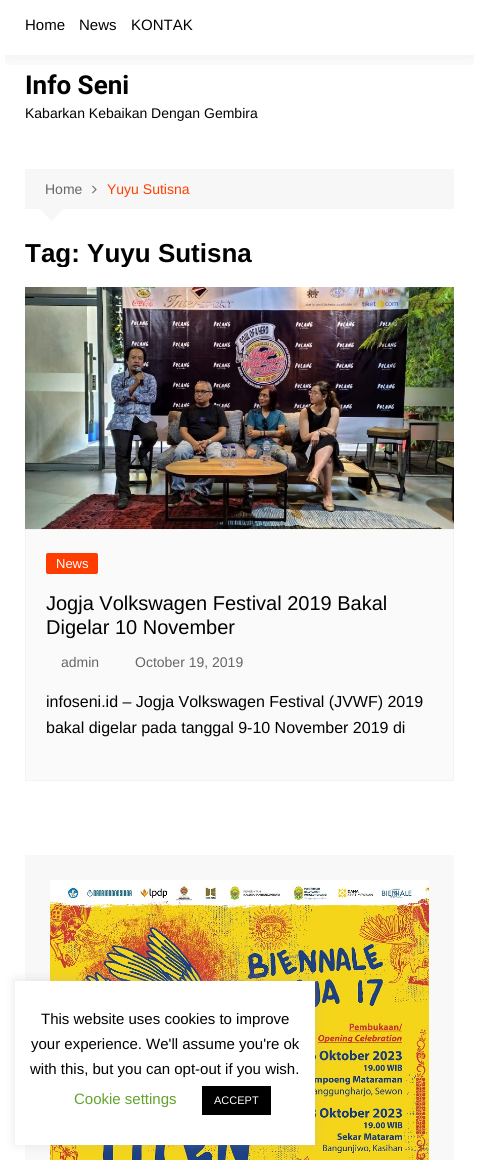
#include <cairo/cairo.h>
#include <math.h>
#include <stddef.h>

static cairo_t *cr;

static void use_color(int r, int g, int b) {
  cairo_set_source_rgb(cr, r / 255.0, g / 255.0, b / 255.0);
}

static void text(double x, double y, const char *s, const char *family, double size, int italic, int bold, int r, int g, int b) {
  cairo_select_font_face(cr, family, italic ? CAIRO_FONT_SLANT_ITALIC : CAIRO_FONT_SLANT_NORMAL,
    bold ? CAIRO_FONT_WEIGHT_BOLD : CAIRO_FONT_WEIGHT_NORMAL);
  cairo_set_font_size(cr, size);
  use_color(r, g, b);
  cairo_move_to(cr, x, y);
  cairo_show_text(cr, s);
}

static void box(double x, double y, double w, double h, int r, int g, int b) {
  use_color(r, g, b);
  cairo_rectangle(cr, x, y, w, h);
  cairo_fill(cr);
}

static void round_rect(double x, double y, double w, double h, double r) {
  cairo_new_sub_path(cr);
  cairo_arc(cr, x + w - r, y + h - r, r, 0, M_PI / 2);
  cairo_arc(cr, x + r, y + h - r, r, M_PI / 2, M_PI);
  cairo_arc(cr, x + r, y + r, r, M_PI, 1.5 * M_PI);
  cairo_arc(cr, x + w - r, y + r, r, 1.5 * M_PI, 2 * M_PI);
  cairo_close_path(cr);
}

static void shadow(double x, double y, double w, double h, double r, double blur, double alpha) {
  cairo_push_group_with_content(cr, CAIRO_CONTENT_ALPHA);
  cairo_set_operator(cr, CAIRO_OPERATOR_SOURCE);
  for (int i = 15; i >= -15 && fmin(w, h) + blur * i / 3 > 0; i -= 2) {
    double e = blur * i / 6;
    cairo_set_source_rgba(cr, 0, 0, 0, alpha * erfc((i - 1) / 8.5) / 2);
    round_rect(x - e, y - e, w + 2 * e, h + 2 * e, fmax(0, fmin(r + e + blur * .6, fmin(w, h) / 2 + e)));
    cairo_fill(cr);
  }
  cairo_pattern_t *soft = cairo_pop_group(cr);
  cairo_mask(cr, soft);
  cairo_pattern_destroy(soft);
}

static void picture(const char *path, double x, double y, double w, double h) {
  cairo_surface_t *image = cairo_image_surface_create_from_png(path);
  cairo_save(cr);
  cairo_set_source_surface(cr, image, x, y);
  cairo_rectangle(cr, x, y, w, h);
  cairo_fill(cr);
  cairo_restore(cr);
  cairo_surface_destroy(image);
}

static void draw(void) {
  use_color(255, 255, 255);
  cairo_paint(cr);
  cairo_save(cr);
  cairo_rectangle(cr, 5, 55, 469, 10);
  cairo_clip(cr);
  use_color(0, 0, 0);
  shadow(5, 7, 469, 45, 0, 15, 0.1);
  cairo_restore(cr);
  box(25, 169, 429, 40, 247, 247, 247);
  picture("img_01.png", 92, 185, 5, 9);
  cairo_new_path(cr);
  cairo_move_to(cr, 39.5, 208.5);
  cairo_line_to(cr, 63.5, 208.5);
  cairo_line_to(cr, 51.5, 221.5);
  cairo_close_path(cr);
  cairo_fill(cr);
  picture("img_02.png", 25, 287, 429, 242);
  use_color(250, 250, 250);
  cairo_rectangle(cr, 25.5, 529.5, 428, 251);
  cairo_fill_preserve(cr);
  use_color(243, 243, 243);
  cairo_set_line_width(cr, 1);
  cairo_stroke(cr);
  use_color(255, 61, 0);
  round_rect(46, 553, 52, 21, 2);
  cairo_fill(cr);
  box(25, 855, 429, 305, 248, 248, 248);
  picture("img_03.png", 50, 880, 379, 280);
  use_color(172, 171, 171);
  shadow(15, 980, 300, 164, 0, 5, 0.3);
  box(15, 981, 300, 164, 255, 255, 255);
  box(202, 1086, 69, 29, 0, 0, 0);
  text(25, 30, "Home", "Liberation Sans", 15, 0, 0, 1, 1, 1);
  text(79, 30, "News", "Liberation Sans", 15, 0, 0, 1, 1, 1);
  text(131, 30, "KONTAK", "Liberation Sans", 15, 0, 0, 1, 1, 1);
  text(25, 94, "Info Seni", "Roboto", 26, 0, 1, 1, 1, 1);
  text(25, 118, "Kabarkan Kebaikan Dengan Gembira", "Liberation Sans", 14, 0, 0, 1, 1, 1);
  text(45, 194, "Home", "Liberation Sans", 14, 0, 0, 102, 102, 102);
  text(107, 194, "Yuyu Sutisna", "Liberation Sans", 14, 0, 0, 255, 61, 0);
  cairo_save(cr);
  cairo_rectangle(cr, 25, 239, 429, 28);
  cairo_clip(cr);
  text(25, 262, "Tag: Yuyu Sutisna", "Liberation Sans", 26, 0, 1, 1, 1, 1);
  cairo_restore(cr);
  text(56, 568, "News", "Liberation Sans", 13, 0, 0, 255, 255, 255);
  text(46, 610, "Jogja Volkswagen Festival 2019 Bakal", "Liberation Sans", 20, 0, 0, 1, 1, 1);
  text(46, 634, "Digelar 10 November", "Liberation Sans", 20, 0, 0, 1, 1, 1);
  text(61, 667, "admin", "Liberation Sans", 14, 0, 0, 102, 102, 102);
  text(135, 667, "October 19, 2019", "Liberation Sans", 14, 0, 0, 102, 102, 102);
  text(46, 707, "infoseni.id – Jogja Volkswagen Festival (JVWF) 2019", "Liberation Sans", 16, 0, 0, 1, 1, 1);
  text(46, 733, "bakal digelar pada tanggal 9-10 November 2019 di", "Liberation Sans", 16, 0, 0, 1, 1, 1);
  text(41, 1024, "This website uses cookies to improve", "Liberation Sans", 15, 0, 0, 1, 1, 1);
  text(31, 1049, "your experience. We'll assume you're ok", "Liberation Sans", 15, 0, 0, 1, 1, 1);
  text(30, 1074, "with this, but you can opt-out if you wish.", "Liberation Sans", 15, 0, 0, 1, 1, 1);
  text(74, 1104, "Cookie settings", "Liberation Sans", 15, 0, 0, 98, 163, 41);
  text(214, 1104, "ACCEPT", "Liberation Sans", 11, 0, 0, 255, 255, 255);
}

int main(void) {
  cairo_surface_t *surface = cairo_image_surface_create(CAIRO_FORMAT_RGB24, 479, 1160);
  cr = cairo_create(surface);
  cairo_font_options_t *options = cairo_font_options_create();
  cairo_font_options_set_hint_metrics(options, CAIRO_HINT_METRICS_OFF);
  cairo_font_options_set_hint_style(options, CAIRO_HINT_STYLE_NONE);
  cairo_set_font_options(cr, options);
  cairo_set_miter_limit(cr, 4);
  draw();
  cairo_surface_write_to_png(surface, "out.png");
  cairo_font_options_destroy(options);
  cairo_destroy(cr);
  cairo_surface_destroy(surface);
  return 0;
}
